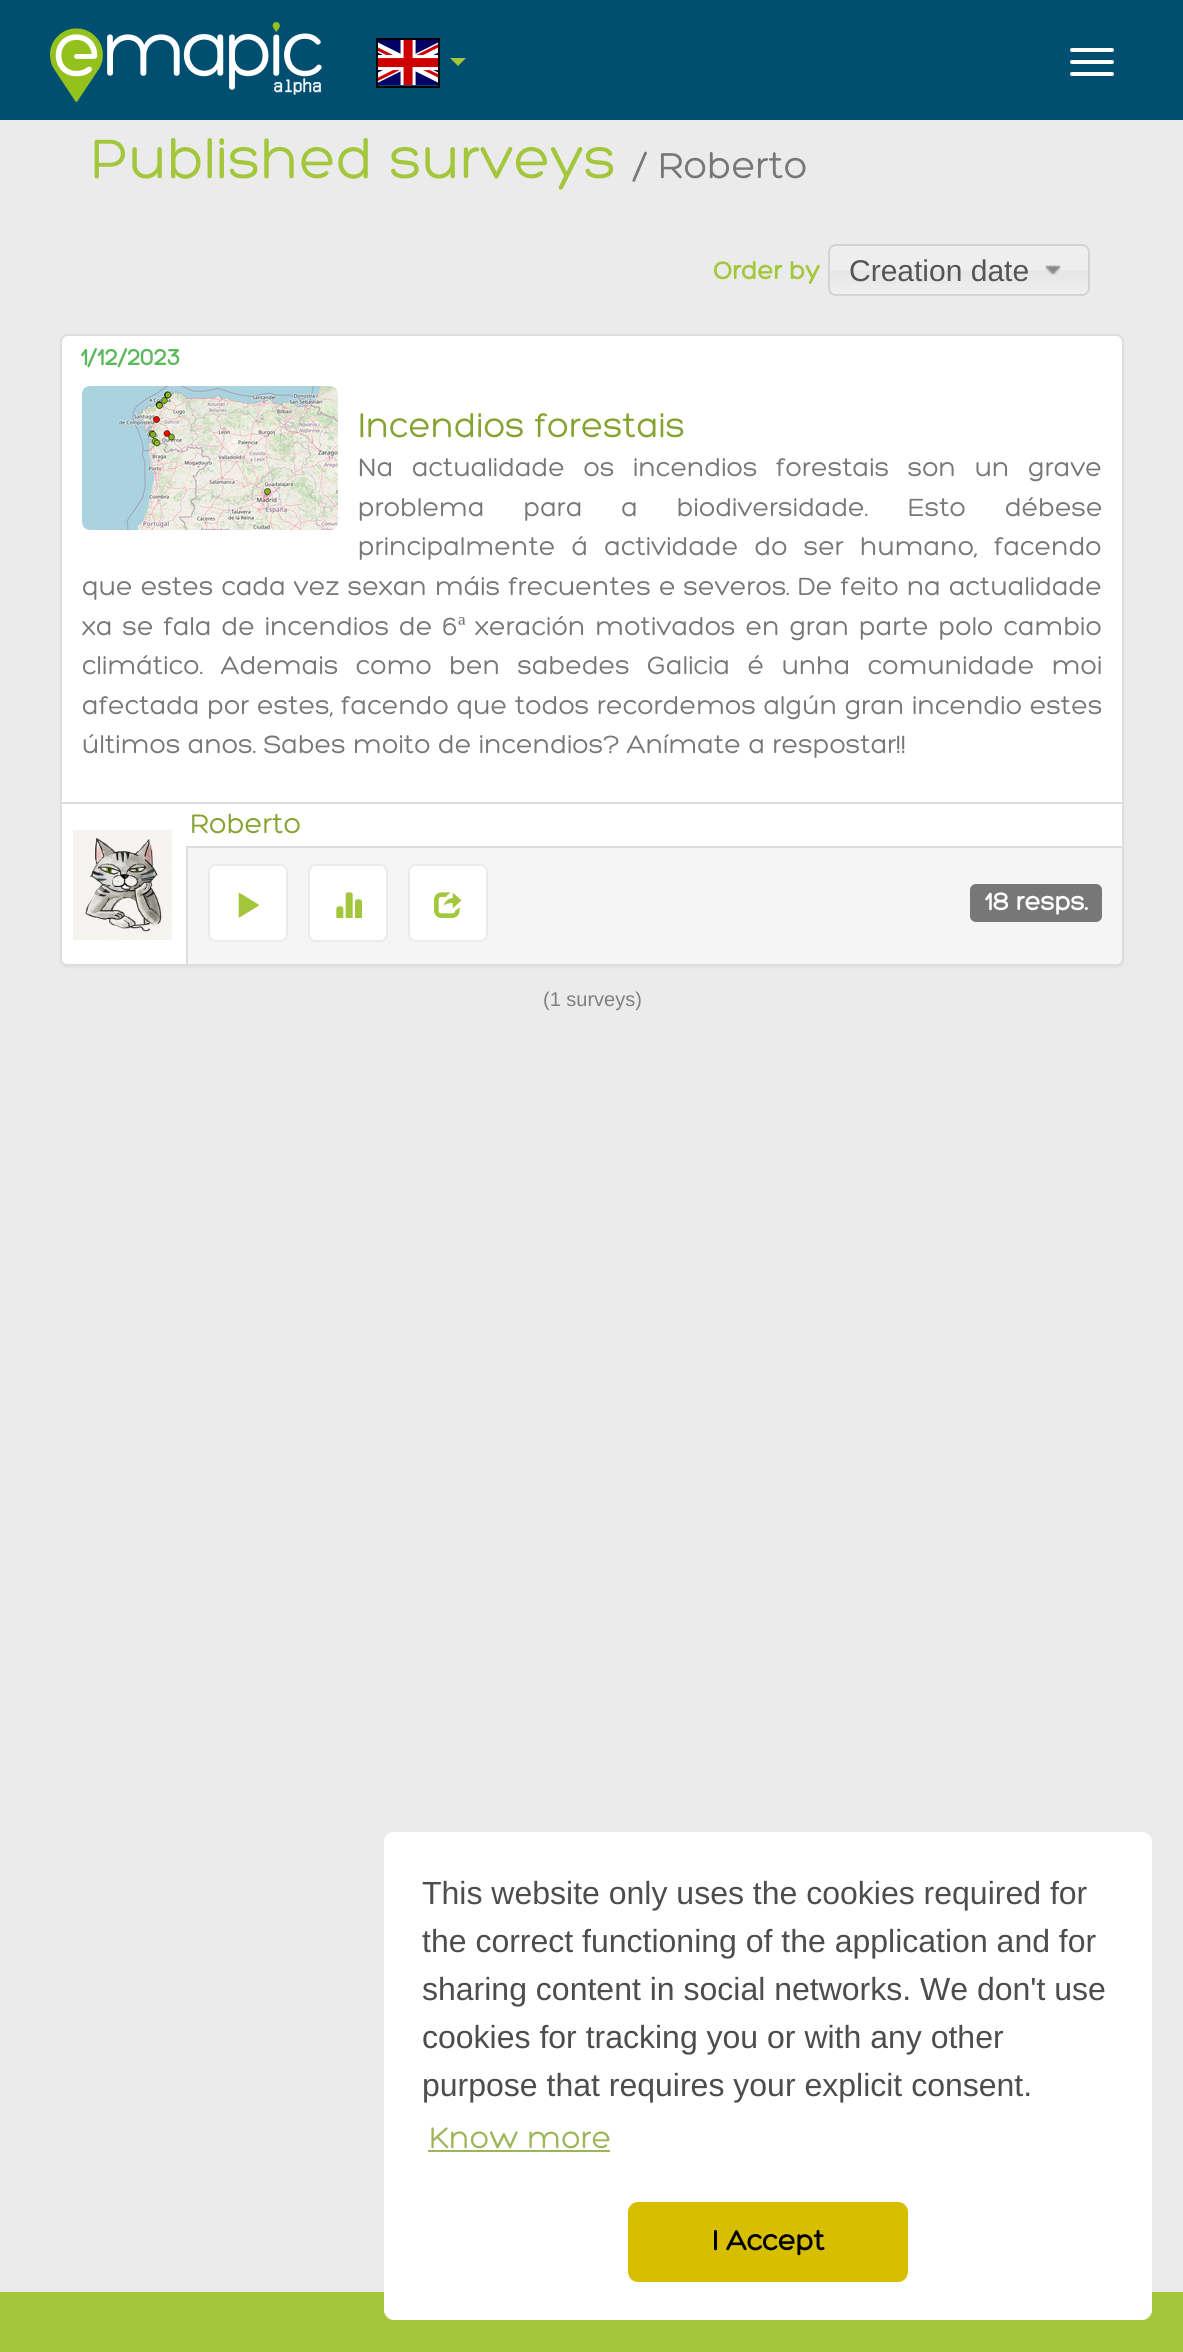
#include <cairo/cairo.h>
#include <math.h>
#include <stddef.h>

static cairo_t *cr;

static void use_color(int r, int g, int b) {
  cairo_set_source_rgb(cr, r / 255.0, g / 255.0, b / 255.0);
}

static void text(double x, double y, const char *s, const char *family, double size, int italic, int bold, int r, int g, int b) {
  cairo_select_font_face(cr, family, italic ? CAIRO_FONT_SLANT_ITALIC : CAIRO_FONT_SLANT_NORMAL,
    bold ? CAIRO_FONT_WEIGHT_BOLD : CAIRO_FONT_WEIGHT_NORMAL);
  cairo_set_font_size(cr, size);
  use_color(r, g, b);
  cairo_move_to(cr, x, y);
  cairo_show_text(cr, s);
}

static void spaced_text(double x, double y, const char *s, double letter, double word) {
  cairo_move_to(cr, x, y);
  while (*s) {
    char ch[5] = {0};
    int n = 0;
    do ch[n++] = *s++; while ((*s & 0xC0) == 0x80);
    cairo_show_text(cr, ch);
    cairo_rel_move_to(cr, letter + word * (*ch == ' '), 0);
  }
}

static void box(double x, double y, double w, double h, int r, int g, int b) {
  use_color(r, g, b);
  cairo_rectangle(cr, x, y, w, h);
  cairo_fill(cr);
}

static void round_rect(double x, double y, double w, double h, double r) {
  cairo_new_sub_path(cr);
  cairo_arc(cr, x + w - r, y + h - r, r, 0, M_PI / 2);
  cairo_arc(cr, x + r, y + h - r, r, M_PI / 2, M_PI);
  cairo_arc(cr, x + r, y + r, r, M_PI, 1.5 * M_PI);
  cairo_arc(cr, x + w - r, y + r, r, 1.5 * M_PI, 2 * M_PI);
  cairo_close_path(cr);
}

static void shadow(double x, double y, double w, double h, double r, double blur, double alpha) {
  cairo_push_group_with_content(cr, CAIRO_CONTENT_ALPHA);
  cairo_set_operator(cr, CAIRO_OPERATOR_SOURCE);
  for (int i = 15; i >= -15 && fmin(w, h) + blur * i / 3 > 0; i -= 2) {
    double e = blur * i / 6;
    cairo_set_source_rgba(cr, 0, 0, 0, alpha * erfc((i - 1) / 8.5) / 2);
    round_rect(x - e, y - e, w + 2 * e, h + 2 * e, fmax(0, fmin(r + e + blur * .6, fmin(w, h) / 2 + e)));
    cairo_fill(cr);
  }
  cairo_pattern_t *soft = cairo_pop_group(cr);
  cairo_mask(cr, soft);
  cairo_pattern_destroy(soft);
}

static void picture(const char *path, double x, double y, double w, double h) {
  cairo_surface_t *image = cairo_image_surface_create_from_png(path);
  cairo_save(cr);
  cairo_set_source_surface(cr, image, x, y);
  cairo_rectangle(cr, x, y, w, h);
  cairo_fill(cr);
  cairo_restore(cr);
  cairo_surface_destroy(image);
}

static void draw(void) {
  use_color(235, 235, 235);
  cairo_paint(cr);
  box(0, 0, 1183, 120, 0, 79, 113);
  picture("img_01.png", 50, 22, 272, 80);
  cairo_rectangle(cr, 377, 39, 62, 48);
  use_color(0, 0, 0);
  cairo_stroke(cr);
  picture("img_02.png", 378, 40, 60, 46);
  use_color(162, 199, 58);
  cairo_new_path(cr);
  cairo_move_to(cr, 450, 58);
  cairo_line_to(cr, 466, 58);
  cairo_line_to(cr, 458, 66);
  cairo_close_path(cr);
  cairo_fill(cr);
  use_color(255, 255, 255);
  round_rect(1070, 48, 44, 4, 2);
  cairo_fill(cr);
  round_rect(1070, 60, 44, 4, 2);
  cairo_fill(cr);
  round_rect(1070, 72, 44, 4, 2);
  cairo_fill(cr);
  picture("img_03.png", 828, 244, 262, 52);
  round_rect(829, 245, 260, 50, 7);
  use_color(211, 211, 211);
  cairo_stroke(cr);
  picture("img_04.png", 1045, 265, 16, 10);
  use_color(0, 0, 0);
  shadow(60, 336, 1064, 632, 8, 1, 0.05);
  use_color(255, 255, 255);
  round_rect(61, 335, 1062, 630, 7);
  cairo_fill_preserve(cr);
  use_color(221, 221, 221);
  cairo_stroke(cr);
  picture("img_05.png", 82, 386, 256, 144);
  box(62, 802, 1060, 2, 221, 221, 221);
  use_color(245, 245, 245);
  cairo_new_path(cr);
  cairo_move_to(cr, 62, 846);
  cairo_line_to(cr, 1122, 846);
  cairo_line_to(cr, 1122, 958);
  cairo_curve_to(cr, 1122, 961.5, 1119.5, 964, 1116, 964);
  cairo_line_to(cr, 68, 964);
  cairo_curve_to(cr, 64.5, 964, 62, 961.5, 62, 958);
  cairo_close_path(cr);
  cairo_fill(cr);
  use_color(255, 255, 255);
  cairo_new_path(cr);
  cairo_move_to(cr, 62, 804);
  cairo_line_to(cr, 188, 804);
  cairo_line_to(cr, 188, 964);
  cairo_line_to(cr, 68, 964);
  cairo_curve_to(cr, 64.5, 964, 62, 961.5, 62, 958);
  cairo_close_path(cr);
  cairo_fill(cr);
  box(186, 846, 2, 118, 221, 221, 221);
  picture("img_06.png", 73, 830, 99, 110);
  box(188, 846, 934, 2, 221, 221, 221);
  use_color(255, 255, 255);
  round_rect(209, 865, 78, 76, 7);
  cairo_fill_preserve(cr);
  use_color(235, 235, 235);
  cairo_stroke(cr);
  picture("img_07.png", 238, 892, 21, 26);
  use_color(255, 255, 255);
  round_rect(309, 865, 78, 76, 7);
  cairo_fill_preserve(cr);
  use_color(235, 235, 235);
  cairo_stroke(cr);
  picture("img_08.png", 336, 892, 26, 26);
  use_color(255, 255, 255);
  round_rect(409, 865, 78, 76, 7);
  cairo_fill_preserve(cr);
  use_color(235, 235, 235);
  cairo_stroke(cr);
  picture("img_09.png", 434, 892, 28, 26);
  use_color(119, 119, 119);
  round_rect(970, 884, 132, 38, 6);
  cairo_fill(cr);
  box(0, 2292, 1183, 60, 162, 199, 58);
  use_color(255, 255, 255);
  round_rect(384, 1832, 768, 488, 10);
  cairo_fill(cr);
  box(428, 2150, 182, 2, 157, 181, 89);
  use_color(215, 191, 0);
  round_rect(628, 2202, 280, 80, 10);
  cairo_fill(cr);
  text(90, 178, "Published surveys", "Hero", 60, 0, 0, 162, 199, 58);
  text(633, 178, "/ Roberto", "Hero", 39, 0, 0, 119, 119, 119);
  text(713, 279, "Order by", "Hero", 26, 0, 1, 162, 199, 58);
  text(849, 281, "Creation date", "Liberation Sans", 30, 0, 0, 85, 85, 85);
  text(80, 365, "1/12/2023", "Hero", 24, 0, 1, 92, 184, 92);
  text(358, 437, "Incendios forestais", "Hero", 36, 0, 0, 133, 163, 48);
  cairo_set_font_size(cr, 27);
  use_color(119, 119, 119);
  spaced_text(358, 476, "Na actualidade os incendios forestais son un grave", 0, 11.25);
  spaced_text(358, 516, "problema para a biodiversidade. Esto débese", 0, 31.5);
  spaced_text(358, 555, "principalmente á actividade do ser humano, facendo", 0, 8.75);
  spaced_text(82, 595, "que estes cada vez sexan máis frecuentes e severos. De feito na actualidade", 0, 0.6);
  spaced_text(82, 635, "xa se fala de incendios de 6", 0, 2.5);
  text(458, 635, "ª", "Liberation Serif", 27, 0, 0, 119, 119, 119);
  cairo_select_font_face(cr, "Hero", CAIRO_FONT_SLANT_NORMAL, CAIRO_FONT_WEIGHT_NORMAL);
  spaced_text(475, 635, "xeración motivados en gran parte polo cambio", 0, 2.5);
  spaced_text(82, 674, "climático. Ademais como ben sabedes Galicia é unha comunidade moi", 0, 10);
  spaced_text(82, 714, "afectada por estes, facendo que todos recordemos algún gran incendio estes", 0, 0.25);
  text(82, 753, "últimos anos. Sabes moito de incendios? Anímate a respostar!!", "Hero", 27, 0, 0, 119, 119, 119);
  text(190, 833, "Roberto", "Hero", 29, 0, 0, 133, 163, 48);
  text(984, 910, "18 resps.", "Hero", 26, 0, 1, 255, 255, 255);
  text(543, 1006, "(1 surveys)", "Liberation Sans", 20, 0, 0, 128, 128, 128);
  text(422, 1904, "This website only uses the cookies required for", "Liberation Sans", 32, 0, 0, 77, 77, 77);
  text(422, 1952, "the correct functioning of the application and for", "Liberation Sans", 32, 0, 0, 77, 77, 77);
  text(422, 2000, "sharing content in social networks. We don't use", "Liberation Sans", 32, 0, 0, 77, 77, 77);
  text(422, 2048, "cookies for tracking you or with any other", "Liberation Sans", 32, 0, 0, 77, 77, 77);
  text(422, 2096, "purpose that requires your explicit consent.", "Liberation Sans", 32, 0, 0, 77, 77, 77);
  text(429, 2148, "Know more", "Hero", 32, 0, 0, 157, 181, 89);
  text(712, 2250, "I Accept", "Hero", 29, 0, 1, 0, 0, 0);
}

int main(void) {
  cairo_surface_t *surface = cairo_image_surface_create(CAIRO_FORMAT_RGB24, 1183, 2352);
  cr = cairo_create(surface);
  cairo_font_options_t *options = cairo_font_options_create();
  cairo_font_options_set_hint_metrics(options, CAIRO_HINT_METRICS_OFF);
  cairo_font_options_set_hint_style(options, CAIRO_HINT_STYLE_NONE);
  cairo_set_font_options(cr, options);
  cairo_set_miter_limit(cr, 4);
  draw();
  cairo_surface_write_to_png(surface, "out.png");
  cairo_font_options_destroy(options);
  cairo_destroy(cr);
  cairo_surface_destroy(surface);
  return 0;
}
